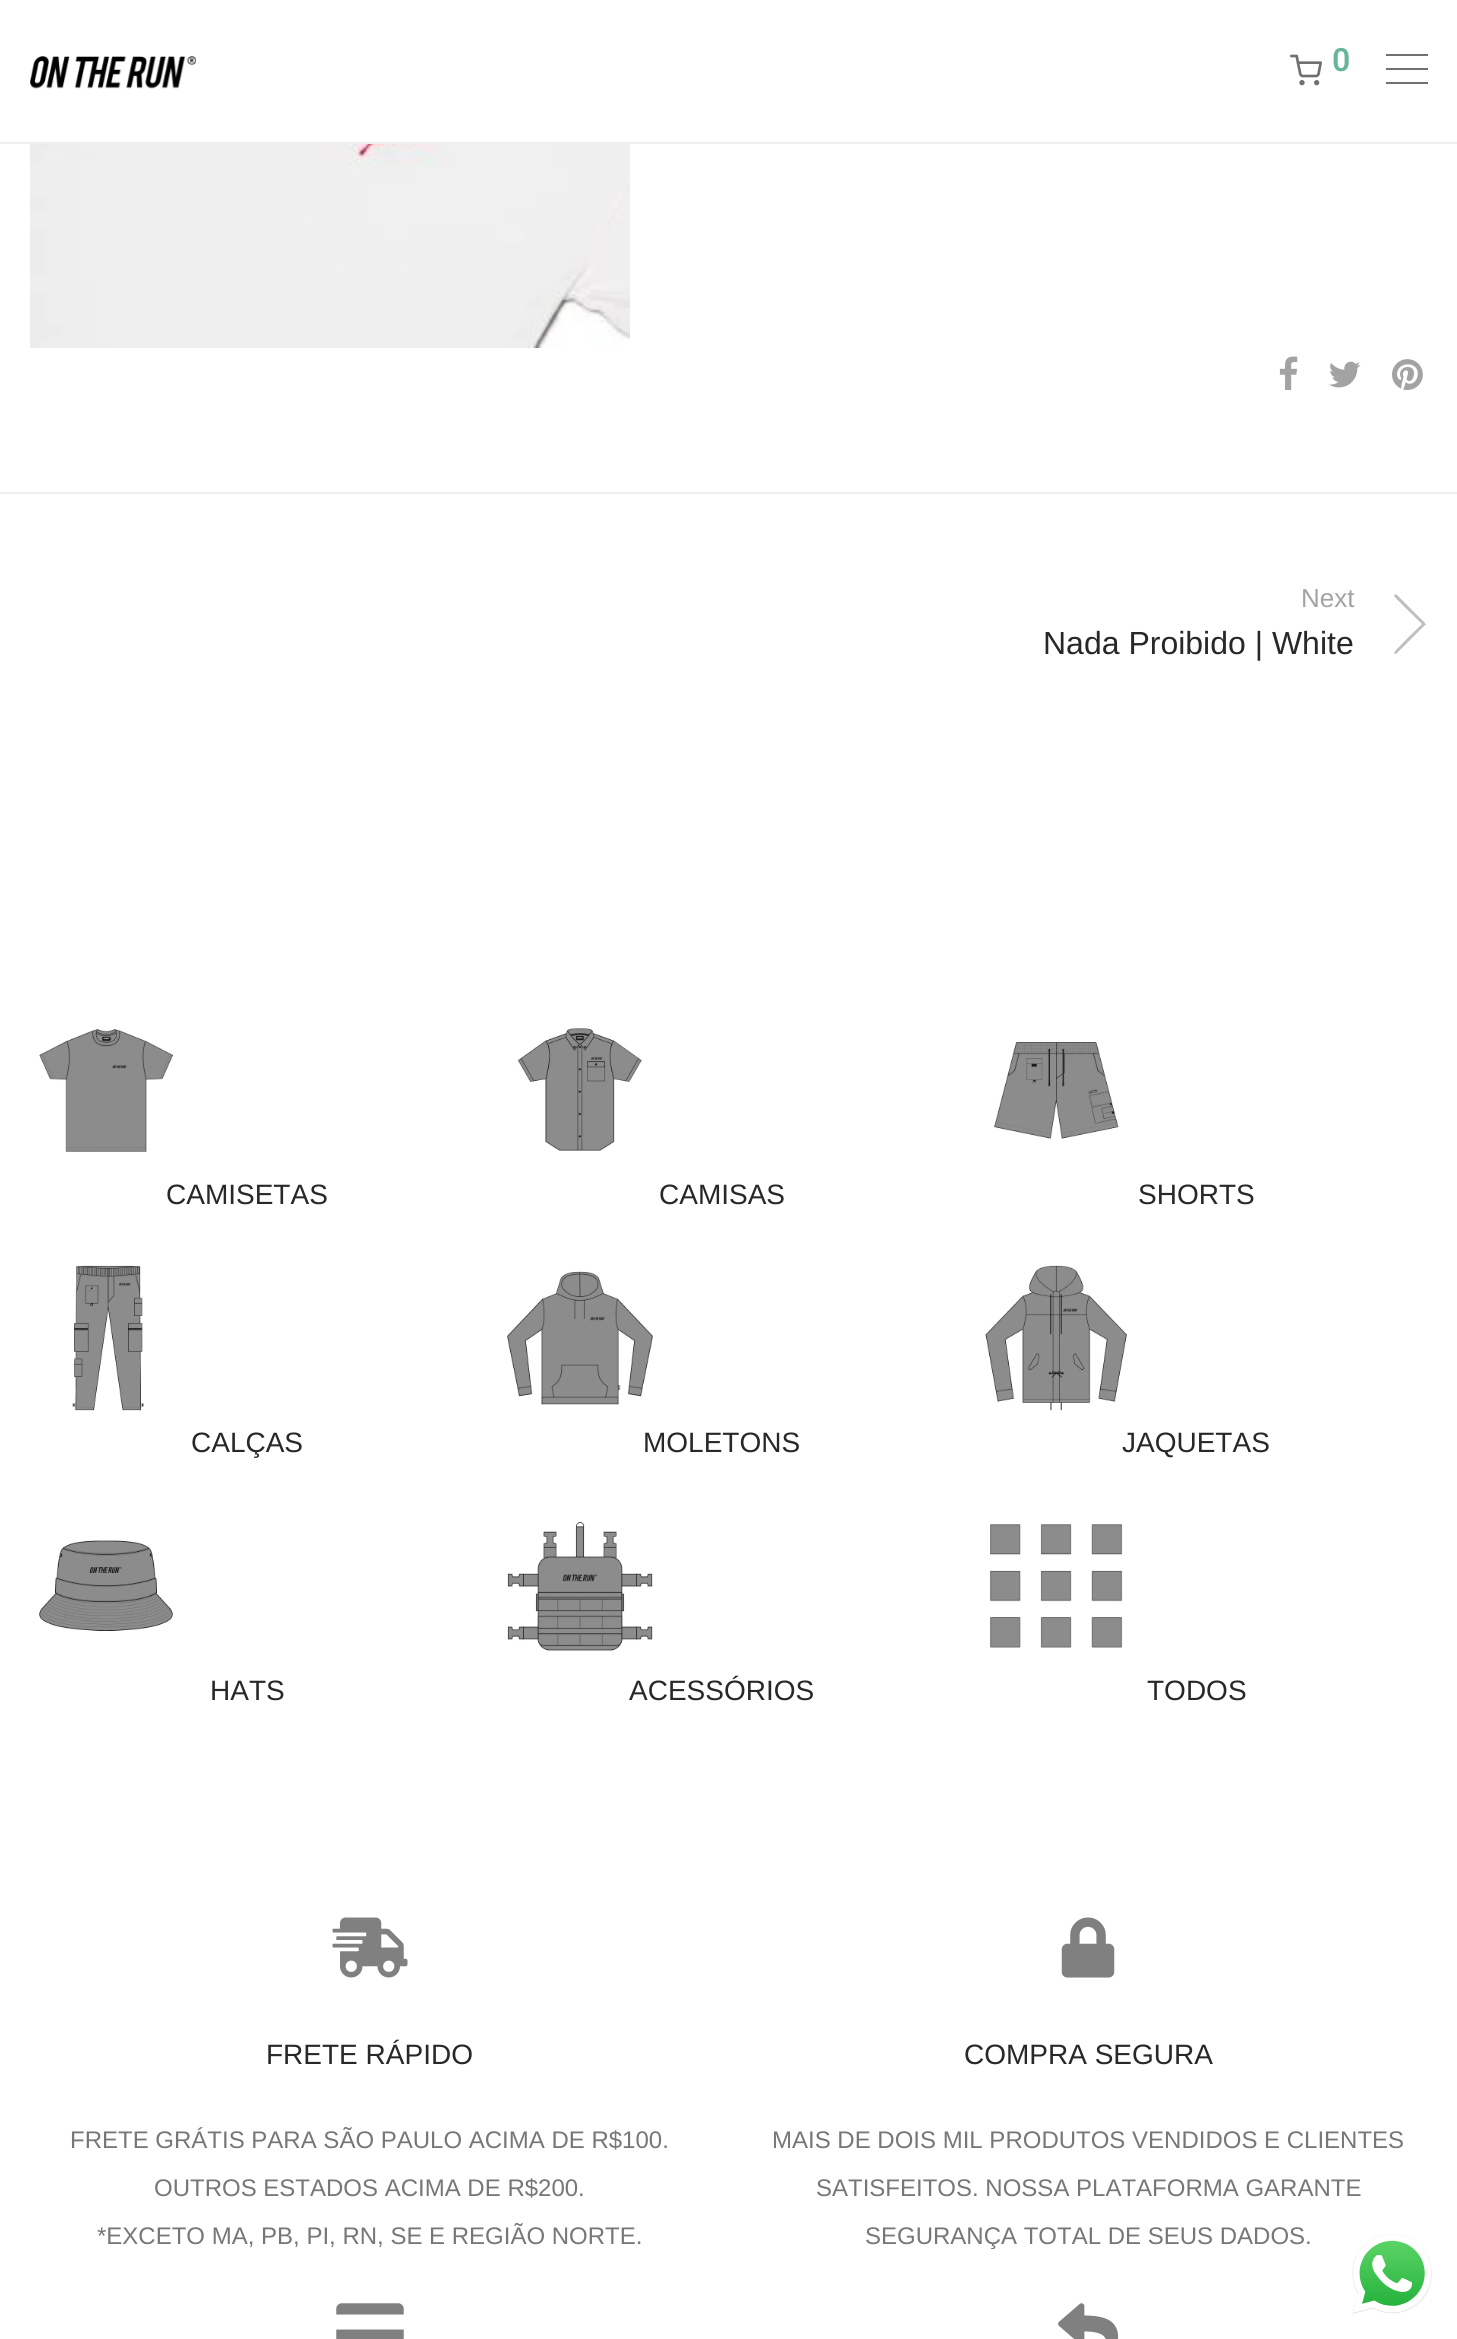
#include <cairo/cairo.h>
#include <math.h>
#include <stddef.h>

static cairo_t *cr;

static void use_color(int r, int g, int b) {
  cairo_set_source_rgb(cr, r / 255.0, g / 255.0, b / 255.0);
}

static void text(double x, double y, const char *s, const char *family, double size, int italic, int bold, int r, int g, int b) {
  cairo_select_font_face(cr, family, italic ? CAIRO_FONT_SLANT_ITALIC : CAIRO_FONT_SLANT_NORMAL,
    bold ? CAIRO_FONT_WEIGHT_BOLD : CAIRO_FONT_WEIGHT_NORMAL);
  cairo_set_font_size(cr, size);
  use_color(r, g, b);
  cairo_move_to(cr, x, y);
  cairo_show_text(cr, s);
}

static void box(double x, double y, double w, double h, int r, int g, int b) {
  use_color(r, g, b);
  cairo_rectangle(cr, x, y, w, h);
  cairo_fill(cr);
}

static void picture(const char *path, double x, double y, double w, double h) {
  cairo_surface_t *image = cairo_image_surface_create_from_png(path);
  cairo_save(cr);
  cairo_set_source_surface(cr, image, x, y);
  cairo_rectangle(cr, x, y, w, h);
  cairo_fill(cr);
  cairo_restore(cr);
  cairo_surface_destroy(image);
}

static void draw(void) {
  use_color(255, 255, 255);
  cairo_paint(cr);
  box(0, 142, 1457, 2, 238, 238, 238);
  picture("img_01.png", 30, 56, 166, 33);
  picture("img_02.png", 1290, 54, 32, 32);
  box(1386, 54, 42, 2, 112, 112, 112);
  box(1386, 68, 42, 2, 112, 112, 112);
  box(1386, 82, 42, 2, 112, 112, 112);
  picture("img_03.png", 30, 144, 600, 204);
  picture("img_04.png", 1279, 356, 19, 34);
  picture("img_05.png", 1329, 361, 32, 27);
  picture("img_06.png", 1392, 359, 31, 31);
  box(0, 492, 1457, 2, 238, 238, 238);
  use_color(191, 191, 191);
  cairo_new_path(cr);
  cairo_move_to(cr, 1425, 625);
  cairo_line_to(cr, 1396, 654);
  cairo_curve_to(cr, 1395, 654, 1394, 653, 1394, 653);
  cairo_curve_to(cr, 1394, 651, 1419, 627, 1422, 624);
  cairo_curve_to(cr, 1419, 621, 1394, 597, 1394, 596);
  cairo_curve_to(cr, 1395, 592, 1398, 596, 1402, 600);
  cairo_line_to(cr, 1425, 623);
  cairo_line_to(cr, 1426, 625);
  cairo_close_path(cr);
  cairo_fill(cr);
  picture("img_07.png", 39, 1029, 134, 123);
  picture("img_08.png", 517, 1028, 125, 123);
  picture("img_09.png", 994, 1042, 125, 97);
  picture("img_10.png", 72, 1265, 72, 146);
  picture("img_11.png", 507, 1271, 146, 134);
  picture("img_12.png", 985, 1265, 142, 146);
  picture("img_13.png", 39, 1540, 134, 91);
  picture("img_14.png", 507, 1522, 146, 129);
  picture("img_15.png", 990, 1524, 133, 124);
  picture("img_16.png", 332, 1917, 76, 61);
  picture("img_17.png", 1061, 1917, 54, 61);
  picture("img_18.png", 336, 2303, 68, 36);
  picture("img_19.png", 1058, 2303, 61, 36);
  picture("img_20.png", 1352, 2234, 80, 80);
  text(1332, 71, "0", "Roboto SemiBold", 32, 0, 0, 102, 182, 153);
  text(1301, 607, "Next", "Liberation Sans", 26, 0, 0, 163, 163, 163);
  text(1043, 654, "Nada Proibido | White", "Liberation Sans", 32, 0, 0, 40, 40, 40);
  text(166, 1204, "CAMISETAS", "Liberation Sans", 28, 0, 0, 40, 40, 40);
  text(659, 1204, "CAMISAS", "Liberation Sans", 28, 0, 0, 40, 40, 40);
  text(1138, 1204, "SHORTS", "Liberation Sans", 28, 0, 0, 40, 40, 40);
  text(191, 1452, "CALÇAS", "Liberation Sans", 28, 0, 0, 40, 40, 40);
  text(643, 1452, "MOLETONS", "Liberation Sans", 28, 0, 0, 40, 40, 40);
  text(1122, 1452, "JAQUETAS", "Liberation Sans", 28, 0, 0, 40, 40, 40);
  text(210, 1700, "HATS", "Liberation Sans", 28, 0, 0, 40, 40, 40);
  text(629, 1700, "ACESSÓRIOS", "Liberation Sans", 28, 0, 0, 40, 40, 40);
  text(1147, 1700, "TODOS", "Liberation Sans", 28, 0, 0, 40, 40, 40);
  text(266, 2064, "FRETE RÁPIDO", "Liberation Sans", 28, 0, 0, 40, 40, 40);
  text(70, 2148, "FRETE GRÁTIS PARA SÃO PAULO ACIMA DE R$100.", "Liberation Sans", 24, 0, 0, 119, 119, 119);
  text(154, 2196, "OUTROS ESTADOS ACIMA DE R$200.", "Liberation Sans", 24, 0, 0, 119, 119, 119);
  text(97, 2244, "*EXCETO MA, PB, PI, RN, SE E REGIÃO NORTE.", "Liberation Sans", 24, 0, 0, 119, 119, 119);
  text(964, 2064, "COMPRA SEGURA", "Liberation Sans", 28, 0, 0, 40, 40, 40);
  text(772, 2148, "MAIS DE DOIS MIL PRODUTOS VENDIDOS E CLIENTES", "Liberation Sans", 24, 0, 0, 119, 119, 119);
  text(816, 2196, "SATISFEITOS. NOSSA PLATAFORMA GARANTE", "Liberation Sans", 24, 0, 0, 119, 119, 119);
  text(865, 2244, "SEGURANÇA TOTAL DE SEUS DADOS.", "Liberation Sans", 24, 0, 0, 119, 119, 119);
}

int main(void) {
  cairo_surface_t *surface = cairo_image_surface_create(CAIRO_FORMAT_RGB24, 1457, 2339);
  cr = cairo_create(surface);
  cairo_font_options_t *options = cairo_font_options_create();
  cairo_font_options_set_hint_metrics(options, CAIRO_HINT_METRICS_OFF);
  cairo_font_options_set_hint_style(options, CAIRO_HINT_STYLE_NONE);
  cairo_set_font_options(cr, options);
  cairo_set_miter_limit(cr, 4);
  draw();
  cairo_surface_write_to_png(surface, "out.png");
  cairo_font_options_destroy(options);
  cairo_destroy(cr);
  cairo_surface_destroy(surface);
  return 0;
}
